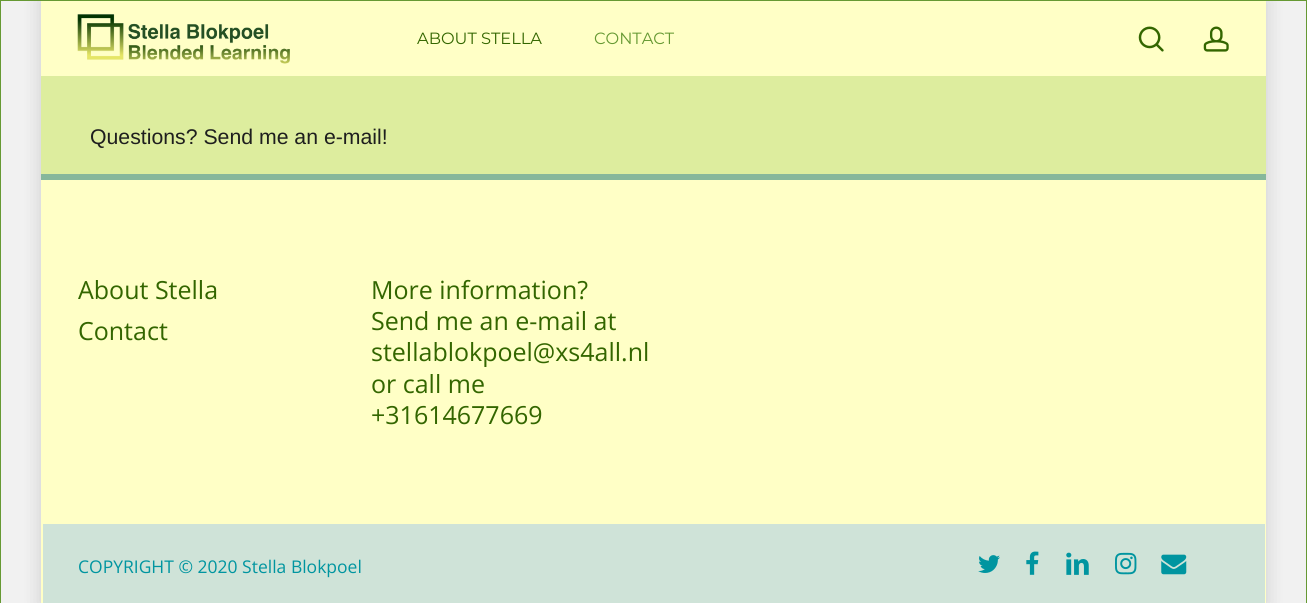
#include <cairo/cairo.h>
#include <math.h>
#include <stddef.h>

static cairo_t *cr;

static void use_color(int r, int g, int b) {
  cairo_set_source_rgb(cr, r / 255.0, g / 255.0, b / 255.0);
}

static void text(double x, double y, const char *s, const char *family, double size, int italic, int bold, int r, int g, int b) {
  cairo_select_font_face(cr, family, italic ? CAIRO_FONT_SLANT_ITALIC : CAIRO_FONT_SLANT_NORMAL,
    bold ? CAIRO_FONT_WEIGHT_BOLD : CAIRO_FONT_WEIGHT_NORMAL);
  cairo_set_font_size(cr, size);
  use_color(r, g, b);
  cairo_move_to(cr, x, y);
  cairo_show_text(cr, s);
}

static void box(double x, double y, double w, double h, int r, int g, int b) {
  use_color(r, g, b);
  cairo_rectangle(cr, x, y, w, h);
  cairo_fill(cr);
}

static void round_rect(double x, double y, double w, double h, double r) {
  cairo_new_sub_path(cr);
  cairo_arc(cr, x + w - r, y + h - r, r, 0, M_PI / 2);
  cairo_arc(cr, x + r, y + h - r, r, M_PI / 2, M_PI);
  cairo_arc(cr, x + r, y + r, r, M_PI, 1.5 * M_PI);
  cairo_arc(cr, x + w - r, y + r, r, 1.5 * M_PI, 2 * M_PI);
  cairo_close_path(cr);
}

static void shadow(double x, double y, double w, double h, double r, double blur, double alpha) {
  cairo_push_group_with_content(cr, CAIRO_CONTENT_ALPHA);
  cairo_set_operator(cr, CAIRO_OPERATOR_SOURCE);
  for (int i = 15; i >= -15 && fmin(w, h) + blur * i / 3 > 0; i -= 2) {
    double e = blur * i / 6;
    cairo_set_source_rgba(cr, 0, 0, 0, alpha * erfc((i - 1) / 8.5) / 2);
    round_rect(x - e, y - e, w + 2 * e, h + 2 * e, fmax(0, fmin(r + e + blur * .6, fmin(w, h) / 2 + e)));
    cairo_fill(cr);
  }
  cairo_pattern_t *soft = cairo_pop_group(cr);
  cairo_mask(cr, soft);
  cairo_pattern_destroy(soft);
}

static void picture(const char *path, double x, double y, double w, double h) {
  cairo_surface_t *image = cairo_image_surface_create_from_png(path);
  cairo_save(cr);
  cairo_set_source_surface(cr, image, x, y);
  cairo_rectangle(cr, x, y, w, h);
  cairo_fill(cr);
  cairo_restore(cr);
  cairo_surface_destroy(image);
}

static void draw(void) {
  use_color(241, 241, 241);
  cairo_paint(cr);
  use_color(0, 0, 0);
  shadow(41, 0, 1225, 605, 0, 9.5, 0.15);
  box(0, 0, 1307, 1, 102, 153, 51);
  box(0, 0, 1, 603, 102, 153, 51);
  box(41, 1, 1225, 75, 255, 255, 198);
  box(1306, 0, 1, 603, 102, 153, 51);
  picture("img_01.png", 77, 14, 213, 50);
  picture("img_02.png", 1138, 26, 26, 26);
  picture("img_03.png", 1203, 26, 26, 26);
  box(41, 76, 1225, 98, 221, 237, 158);
  box(41, 180, 1225, 423, 255, 255, 198);
  box(41, 174, 1225, 6, 134, 183, 155);
  box(43, 524, 1222, 79, 207, 227, 216);
  picture("img_04.png", 978, 555, 22, 18);
  picture("img_05.png", 1026, 551, 13, 24);
  picture("img_06.png", 1066, 552, 23, 23);
  picture("img_07.png", 1115, 552, 22, 23);
  picture("img_08.png", 1161, 554, 26, 21);
  text(417, 44, "ABOUT STELLA", "Montserrat Thin", 16.25, 0, 0, 51, 102, 0);
  text(594, 44, "CONTACT", "Montserrat Thin", 16.25, 0, 0, 102, 153, 51);
  text(90, 144, "Questions? Send me an e-mail!", "Liberation Sans", 21.25, 0, 0, 30, 30, 30);
  text(78, 299, "About Stella", "Open Sans", 25, 0, 0, 51, 102, 0);
  text(78, 340, "Contact", "Open Sans", 25, 0, 0, 51, 102, 0);
  text(371, 299, "More information?", "Open Sans", 25, 0, 0, 51, 102, 0);
  text(371, 330, "Send me an e-mail at", "Open Sans", 25, 0, 0, 51, 102, 0);
  text(371, 361, "stellablokpoel@xs4all.nl", "Open Sans", 25, 0, 0, 51, 102, 0);
  text(371, 393, "or call me", "Open Sans", 25, 0, 0, 51, 102, 0);
  text(371, 424, "+31614677669", "Open Sans", 25, 0, 0, 51, 102, 0);
  text(78, 573, "COPYRIGHT © 2020 Stella Blokpoel", "Open Sans", 17.5, 0, 0, 0, 149, 160);
}

int main(void) {
  cairo_surface_t *surface = cairo_image_surface_create(CAIRO_FORMAT_RGB24, 1307, 603);
  cr = cairo_create(surface);
  cairo_font_options_t *options = cairo_font_options_create();
  cairo_font_options_set_hint_metrics(options, CAIRO_HINT_METRICS_OFF);
  cairo_font_options_set_hint_style(options, CAIRO_HINT_STYLE_NONE);
  cairo_set_font_options(cr, options);
  cairo_set_miter_limit(cr, 4);
  draw();
  cairo_surface_write_to_png(surface, "out.png");
  cairo_font_options_destroy(options);
  cairo_destroy(cr);
  cairo_surface_destroy(surface);
  return 0;
}
